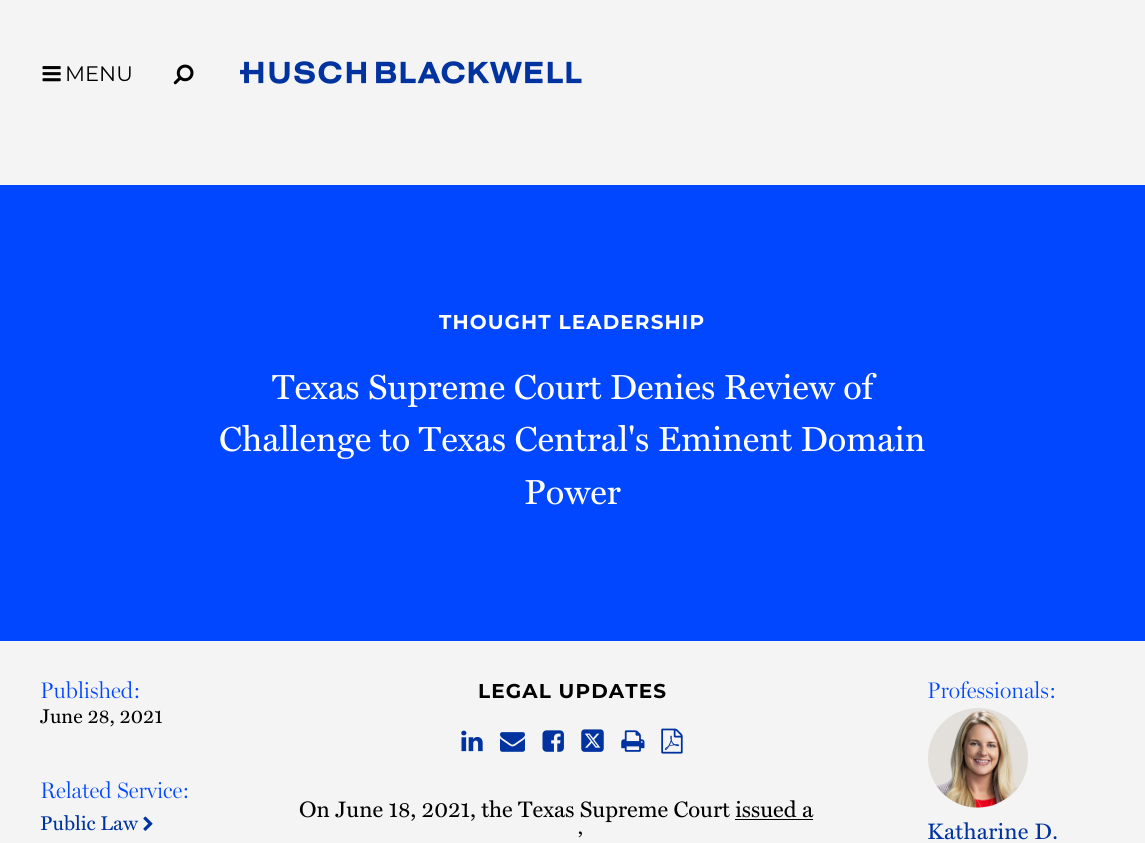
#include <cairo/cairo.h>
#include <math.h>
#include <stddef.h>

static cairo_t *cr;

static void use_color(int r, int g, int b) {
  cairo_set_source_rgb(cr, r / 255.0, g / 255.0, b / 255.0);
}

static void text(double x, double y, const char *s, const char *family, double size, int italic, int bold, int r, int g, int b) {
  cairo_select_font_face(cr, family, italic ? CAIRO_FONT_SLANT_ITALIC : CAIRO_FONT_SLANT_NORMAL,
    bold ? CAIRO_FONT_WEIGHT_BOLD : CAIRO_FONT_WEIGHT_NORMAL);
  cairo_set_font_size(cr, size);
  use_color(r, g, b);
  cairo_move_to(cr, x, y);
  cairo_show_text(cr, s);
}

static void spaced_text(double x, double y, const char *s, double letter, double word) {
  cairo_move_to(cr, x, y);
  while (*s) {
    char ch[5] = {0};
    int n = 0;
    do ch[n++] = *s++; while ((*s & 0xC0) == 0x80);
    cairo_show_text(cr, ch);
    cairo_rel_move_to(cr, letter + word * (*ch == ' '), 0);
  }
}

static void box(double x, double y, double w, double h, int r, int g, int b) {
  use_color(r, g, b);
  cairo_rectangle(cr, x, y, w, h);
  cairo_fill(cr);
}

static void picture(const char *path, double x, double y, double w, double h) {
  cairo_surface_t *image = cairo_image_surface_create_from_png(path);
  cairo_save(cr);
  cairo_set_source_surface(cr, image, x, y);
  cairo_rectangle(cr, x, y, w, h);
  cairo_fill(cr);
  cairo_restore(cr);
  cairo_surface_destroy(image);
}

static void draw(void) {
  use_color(244, 244, 244);
  cairo_paint(cr);
  picture("img_01.png", 42, 66, 19, 16);
  picture("img_02.png", 173, 64, 21, 21);
  picture("img_03.png", 240, 61, 342, 23);
  box(0, 185, 1145, 456, 0, 71, 255);
  picture("img_04.png", 143, 816, 10, 15);
  picture("img_05.png", 461, 730, 22, 22);
  picture("img_06.png", 500, 732, 25, 20);
  picture("img_07.png", 542, 730, 22, 22);
  picture("img_08.png", 581, 729, 23, 23);
  picture("img_09.png", 621, 730, 24, 22);
  picture("img_10.png", 661, 728, 22, 26);
  box(735, 819, 78, 1, 0, 0, 0);
  use_color(227, 224, 219);
  cairo_arc(cr, 978, 758, 50, 0, 2 * M_PI);
  cairo_fill(cr);
  picture("img_11.png", 936, 710, 82, 98);
  text(65, 81, "MENU", "Montserrat", 21, 0, 0, 0, 0, 0);
  cairo_select_font_face(cr, "Montserrat", CAIRO_FONT_SLANT_NORMAL, CAIRO_FONT_WEIGHT_BOLD);
  cairo_set_font_size(cr, 20);
  use_color(255, 255, 255);
  spaced_text(439, 329, "THOUGHT LEADERSHIP", 1.1, 0);
  text(272, 399, "Texas Supreme Court Denies Review of", "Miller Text", 35, 0, 0, 255, 255, 255);
  text(219, 451, "Challenge to Texas Central's Eminent Domain", "Miller Text", 35, 0, 0, 255, 255, 255);
  text(524, 504, "Power", "Miller Text", 35, 0, 0, 255, 255, 255);
  text(40, 698, "Published:", "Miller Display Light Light", 22.5, 0, 0, 0, 71, 255);
  text(40, 723, "June 28, 2021", "Miller Text", 20, 0, 0, 0, 0, 0);
  text(40, 798, "Related Service:", "Miller Display Light Light", 22.5, 0, 0, 0, 71, 255);
  text(40, 830, "Public Law", "Miller Text", 20, 0, 0, 0, 51, 160);
  cairo_select_font_face(cr, "Montserrat", CAIRO_FONT_SLANT_NORMAL, CAIRO_FONT_WEIGHT_BOLD);
  use_color(0, 0, 0);
  spaced_text(478, 698, "LEGAL UPDATES", 1.1, 0);
  text(299, 817, "On June 18, 2021, the Texas Supreme Court issued a", "Miller Text", 22.5, 0, 0, 0, 0, 0);
  text(578, 848, "’", "Miller Text", 22.5, 0, 0, 0, 0, 0);
  text(927, 698, "Professionals:", "Miller Display Light Light", 22.5, 0, 0, 0, 71, 255);
  cairo_select_font_face(cr, "Miller Text", CAIRO_FONT_SLANT_NORMAL, CAIRO_FONT_WEIGHT_NORMAL);
  use_color(0, 51, 160);
  spaced_text(927, 839, "Katharine D.", 0.25, 0);
}

int main(void) {
  cairo_surface_t *surface = cairo_image_surface_create(CAIRO_FORMAT_RGB24, 1145, 843);
  cr = cairo_create(surface);
  cairo_font_options_t *options = cairo_font_options_create();
  cairo_font_options_set_hint_metrics(options, CAIRO_HINT_METRICS_OFF);
  cairo_font_options_set_hint_style(options, CAIRO_HINT_STYLE_NONE);
  cairo_set_font_options(cr, options);
  cairo_set_miter_limit(cr, 4);
  draw();
  cairo_surface_write_to_png(surface, "out.png");
  cairo_font_options_destroy(options);
  cairo_destroy(cr);
  cairo_surface_destroy(surface);
  return 0;
}
